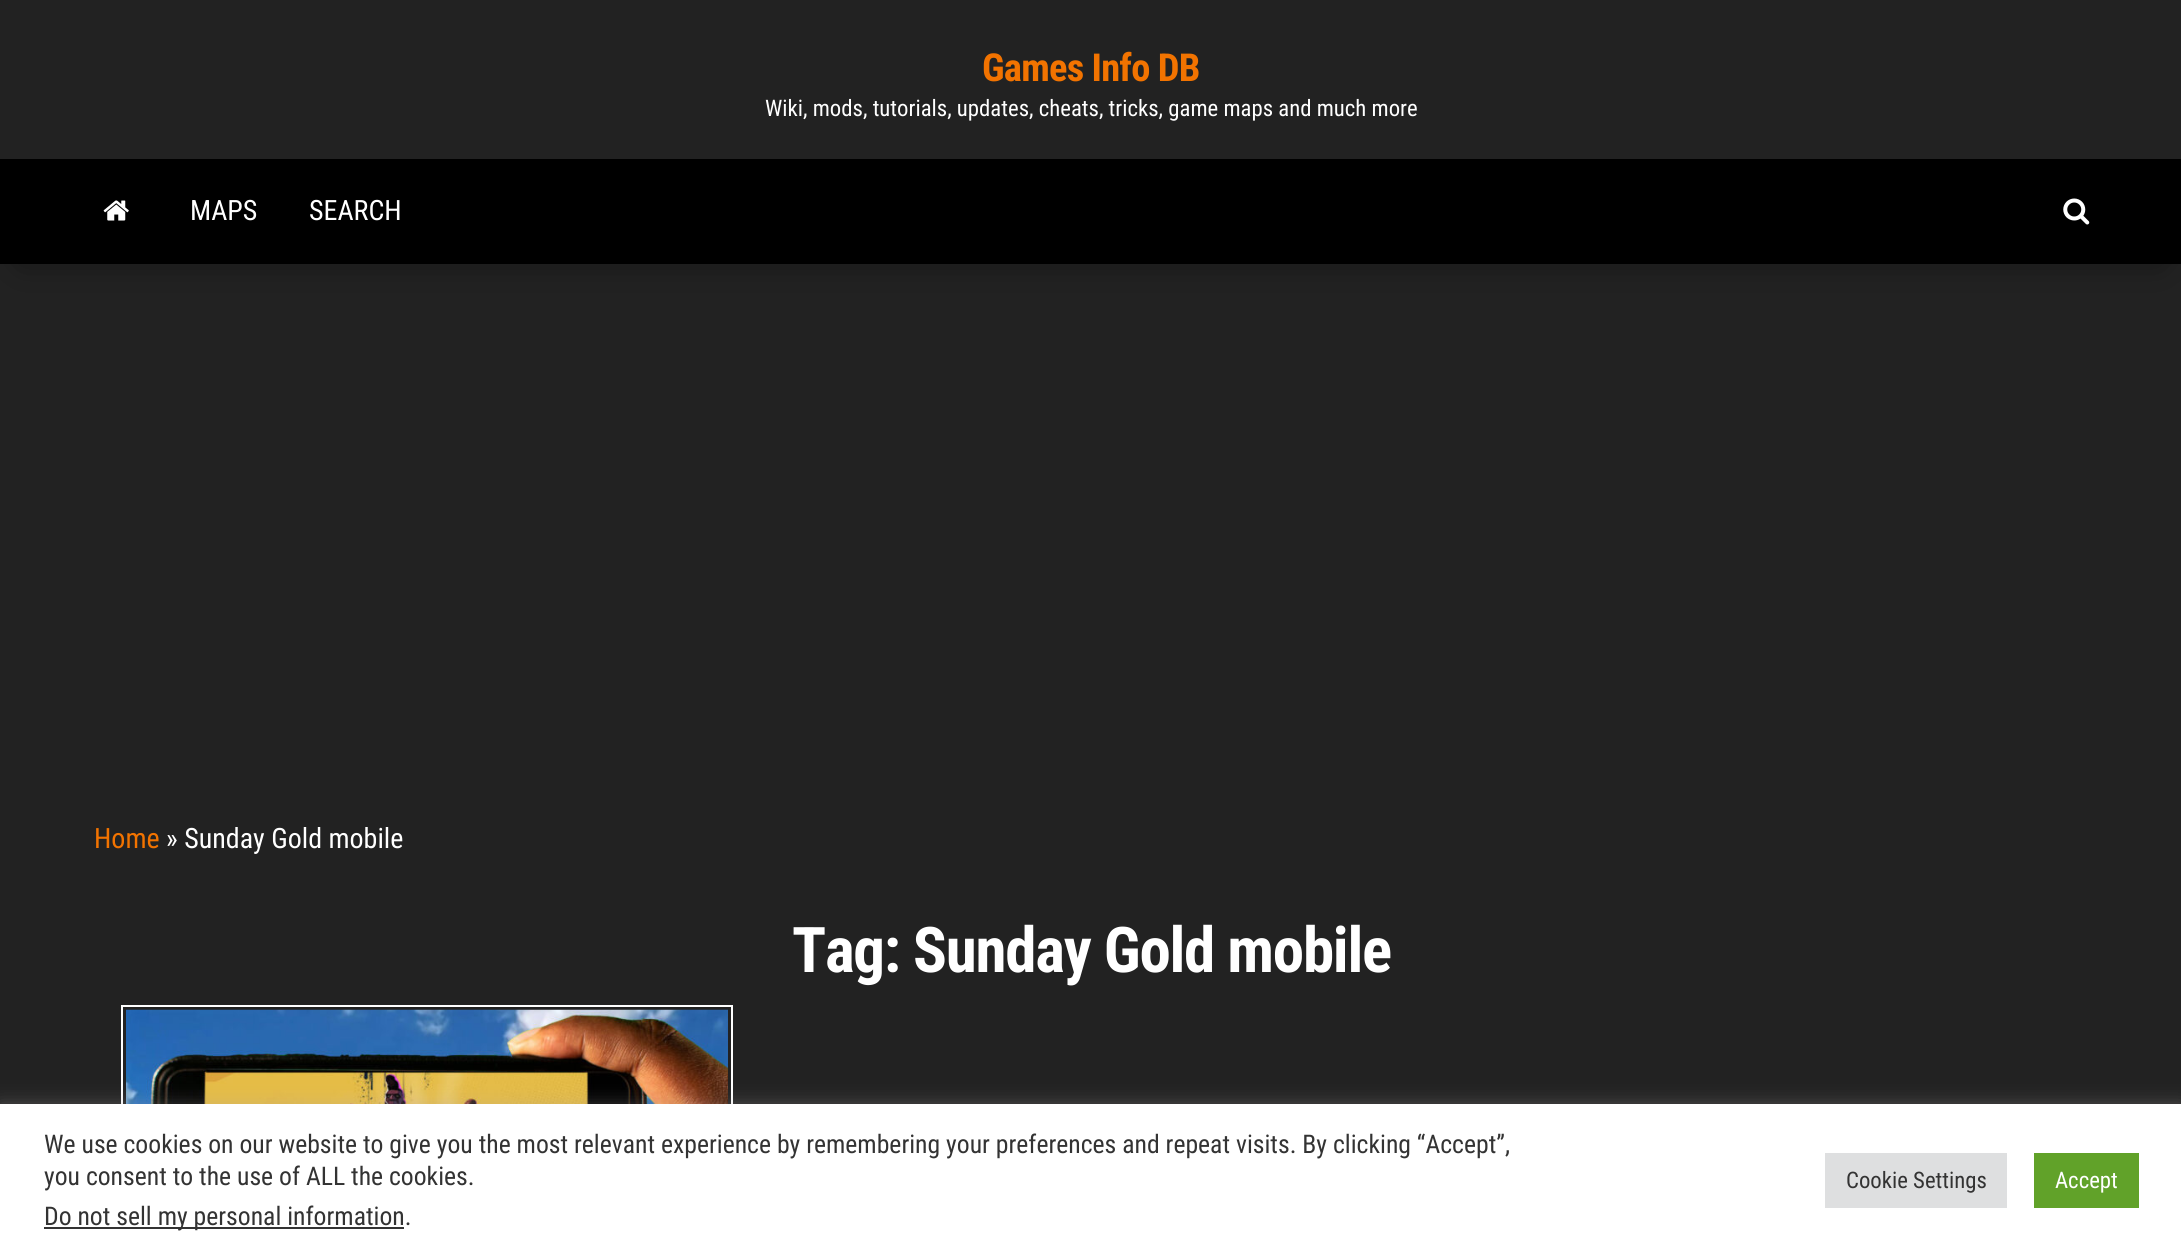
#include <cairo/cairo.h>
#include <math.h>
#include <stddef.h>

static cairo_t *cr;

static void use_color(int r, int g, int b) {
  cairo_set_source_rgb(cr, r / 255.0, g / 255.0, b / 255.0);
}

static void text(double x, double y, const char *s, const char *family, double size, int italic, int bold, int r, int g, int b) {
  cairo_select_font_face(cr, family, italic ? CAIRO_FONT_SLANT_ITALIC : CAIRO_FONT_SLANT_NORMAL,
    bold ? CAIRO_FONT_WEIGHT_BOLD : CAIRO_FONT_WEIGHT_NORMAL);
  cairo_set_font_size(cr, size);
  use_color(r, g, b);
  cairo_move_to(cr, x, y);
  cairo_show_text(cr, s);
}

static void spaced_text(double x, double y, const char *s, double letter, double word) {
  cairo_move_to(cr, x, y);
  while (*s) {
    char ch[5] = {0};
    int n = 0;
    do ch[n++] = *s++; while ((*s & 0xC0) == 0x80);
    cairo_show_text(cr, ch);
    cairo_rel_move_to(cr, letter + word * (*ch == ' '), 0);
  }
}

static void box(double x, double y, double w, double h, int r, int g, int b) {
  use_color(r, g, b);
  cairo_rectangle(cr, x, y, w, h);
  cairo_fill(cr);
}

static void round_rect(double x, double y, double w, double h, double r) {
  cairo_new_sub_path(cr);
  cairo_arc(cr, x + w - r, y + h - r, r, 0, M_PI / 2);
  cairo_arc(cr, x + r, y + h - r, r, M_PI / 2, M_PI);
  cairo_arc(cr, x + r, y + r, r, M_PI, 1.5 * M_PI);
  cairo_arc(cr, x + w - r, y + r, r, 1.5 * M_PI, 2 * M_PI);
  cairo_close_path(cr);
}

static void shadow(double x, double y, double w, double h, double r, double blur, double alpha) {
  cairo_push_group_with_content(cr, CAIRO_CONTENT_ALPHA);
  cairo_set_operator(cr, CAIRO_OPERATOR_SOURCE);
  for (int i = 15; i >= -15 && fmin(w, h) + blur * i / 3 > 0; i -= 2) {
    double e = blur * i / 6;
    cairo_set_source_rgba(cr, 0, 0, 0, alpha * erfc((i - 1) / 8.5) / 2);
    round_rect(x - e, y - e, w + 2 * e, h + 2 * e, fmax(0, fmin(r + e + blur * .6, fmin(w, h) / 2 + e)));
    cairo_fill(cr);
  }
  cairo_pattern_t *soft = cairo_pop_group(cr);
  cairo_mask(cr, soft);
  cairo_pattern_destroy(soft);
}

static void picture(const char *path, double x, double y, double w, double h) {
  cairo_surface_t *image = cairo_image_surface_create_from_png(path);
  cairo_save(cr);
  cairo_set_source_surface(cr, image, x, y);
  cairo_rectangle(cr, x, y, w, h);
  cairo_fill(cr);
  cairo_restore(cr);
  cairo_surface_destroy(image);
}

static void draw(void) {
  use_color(34, 34, 34);
  cairo_paint(cr);
  use_color(0, 0, 0);
  shadow(21, 198, 2140, 63, 0, 17.5, 0.42);
  box(0, 159, 2181, 105, 0, 0, 0);
  picture("img_01.png", 103, 200, 26, 21);
  picture("img_02.png", 2063, 198, 27, 27);
  cairo_rectangle(cr, 122, 1006, 610, 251);
  use_color(255, 255, 255);
  cairo_stroke(cr);
  picture("img_03.png", 126, 1009, 602, 95);
  use_color(172, 171, 171);
  shadow(0, 1103, 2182, 152, 0, 9, 0.3);
  box(0, 1104, 2181, 152, 255, 255, 255);
  box(44, 1227, 360, 2, 51, 51, 51);
  box(1825, 1153, 182, 55, 222, 223, 224);
  box(2034, 1153, 105, 55, 97, 162, 41);
  cairo_select_font_face(cr, "Roboto Condensed", CAIRO_FONT_SLANT_NORMAL, CAIRO_FONT_WEIGHT_BOLD);
  cairo_set_font_size(cr, 38.5);
  use_color(242, 115, 0);
  spaced_text(982, 81, "Games Info DB", -0.75, 0);
  text(765, 116, "Wiki, mods, tutorials, updates, cheats, tricks, game maps and much more", "Roboto Condensed", 22.75, 0, 0, 255, 255, 255);
  text(190, 220, "MAPS", "Roboto Condensed", 28, 0, 0, 255, 255, 255);
  text(309, 220, "SEARCH", "Roboto Condensed", 28, 0, 0, 255, 255, 255);
  text(94, 848, "Home", "Roboto Condensed", 28, 0, 0, 242, 115, 0);
  text(166, 848, "» Sunday Gold mobile", "Roboto Condensed", 28, 0, 0, 255, 255, 255);
  cairo_select_font_face(cr, "Roboto Condensed", CAIRO_FONT_SLANT_NORMAL, CAIRO_FONT_WEIGHT_BOLD);
  cairo_set_font_size(cr, 63);
  spaced_text(792, 972, "Tag: Sunday Gold mobile", -1.25, 0);
  text(44, 1153, "We use cookies on our website to give you the most relevant experience by remembering your preferences and repeat visits. By clicking “Accept”,", "Roboto Condensed", 25.67, 0, 0, 51, 51, 51);
  text(44, 1185, "you consent to the use of ALL the cookies.", "Roboto Condensed", 25.67, 0, 0, 51, 51, 51);
  text(44, 1225, "Do not sell my personal information.", "Roboto Condensed", 25.67, 0, 0, 51, 51, 51);
  text(1846, 1188, "Cookie Settings", "Roboto Condensed", 22.75, 0, 0, 51, 51, 51);
  text(2055, 1188, "Accept", "Roboto Condensed", 22.75, 0, 0, 255, 255, 255);
}

int main(void) {
  cairo_surface_t *surface = cairo_image_surface_create(CAIRO_FORMAT_RGB24, 2181, 1256);
  cr = cairo_create(surface);
  cairo_font_options_t *options = cairo_font_options_create();
  cairo_font_options_set_hint_metrics(options, CAIRO_HINT_METRICS_OFF);
  cairo_font_options_set_hint_style(options, CAIRO_HINT_STYLE_NONE);
  cairo_set_font_options(cr, options);
  cairo_set_miter_limit(cr, 4);
  draw();
  cairo_surface_write_to_png(surface, "out.png");
  cairo_font_options_destroy(options);
  cairo_destroy(cr);
  cairo_surface_destroy(surface);
  return 0;
}
